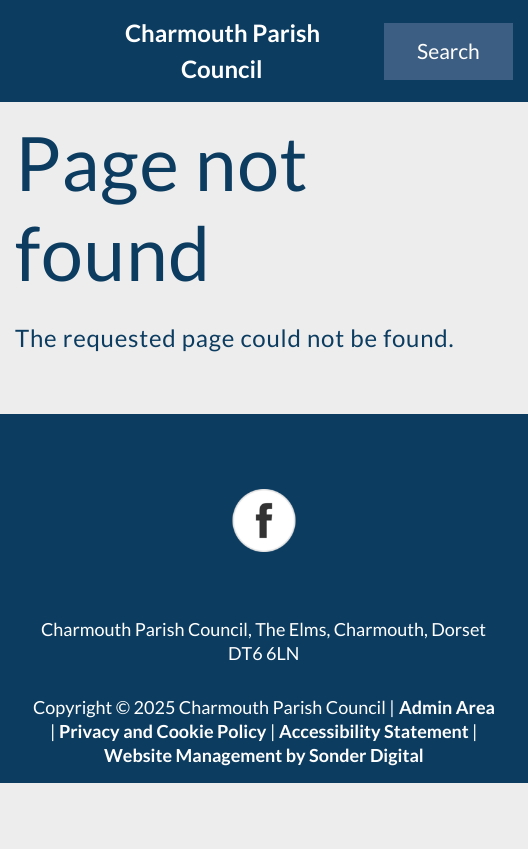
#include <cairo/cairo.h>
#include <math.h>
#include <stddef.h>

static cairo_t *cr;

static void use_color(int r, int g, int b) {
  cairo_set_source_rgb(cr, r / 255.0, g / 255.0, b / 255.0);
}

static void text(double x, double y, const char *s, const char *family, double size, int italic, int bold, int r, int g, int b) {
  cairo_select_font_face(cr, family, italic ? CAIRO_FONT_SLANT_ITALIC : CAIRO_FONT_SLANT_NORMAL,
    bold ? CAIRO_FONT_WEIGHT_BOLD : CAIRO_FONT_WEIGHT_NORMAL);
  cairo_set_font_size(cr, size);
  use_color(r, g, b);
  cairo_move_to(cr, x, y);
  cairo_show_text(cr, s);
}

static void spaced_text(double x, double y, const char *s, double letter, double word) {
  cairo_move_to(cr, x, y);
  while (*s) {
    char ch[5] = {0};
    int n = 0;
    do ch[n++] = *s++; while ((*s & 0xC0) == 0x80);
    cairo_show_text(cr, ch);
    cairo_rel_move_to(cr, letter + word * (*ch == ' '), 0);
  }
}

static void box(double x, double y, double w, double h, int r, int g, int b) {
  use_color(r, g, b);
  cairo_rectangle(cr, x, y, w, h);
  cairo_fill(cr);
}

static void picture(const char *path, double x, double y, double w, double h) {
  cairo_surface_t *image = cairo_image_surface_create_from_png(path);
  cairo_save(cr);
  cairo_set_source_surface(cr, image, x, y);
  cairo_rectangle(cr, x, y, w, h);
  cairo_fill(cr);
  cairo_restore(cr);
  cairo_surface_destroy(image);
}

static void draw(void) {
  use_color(237, 237, 237);
  cairo_paint(cr);
  box(0, 0, 528, 102, 12, 60, 96);
  box(384, 23, 129, 57, 60, 94, 130);
  box(0, 414, 528, 369, 12, 60, 96);
  picture("img_01.png", 232, 489, 64, 63);
  text(125, 42, "Charmouth Parish", "Lato", 24, 0, 1, 255, 255, 255);
  text(181, 78, "Council", "Lato", 24, 0, 1, 255, 255, 255);
  text(417, 59, "Search", "Lato", 21, 0, 0, 255, 255, 255);
  cairo_set_font_size(cr, 75);
  use_color(12, 60, 96);
  spaced_text(15, 191, "Page not", 0.75, 0);
  spaced_text(15, 281, "found", 0.75, 0);
  cairo_set_font_size(cr, 24);
  spaced_text(15, 347, "The requested page could not be found.", 0.75, 0);
  text(41, 636, "Charmouth Parish Council, The Elms, Charmouth, Dorset", "Lato", 18, 0, 0, 255, 255, 255);
  text(228, 660, "DT6 6LN", "Lato", 18, 0, 0, 255, 255, 255);
  text(33, 714, "Copyright © 2025 Charmouth Parish Council |", "Lato", 18, 0, 0, 255, 255, 255);
  text(399, 714, "Admin Area", "Lato", 18, 0, 1, 255, 255, 255);
  text(50, 738, "|", "Lato", 18, 0, 0, 255, 255, 255);
  text(59, 738, "Privacy and Cookie Policy", "Lato", 18, 0, 1, 255, 255, 255);
  text(270, 738, "|", "Lato", 18, 0, 0, 255, 255, 255);
  text(279, 738, "Accessibility Statement", "Lato", 18, 0, 1, 255, 255, 255);
  text(472, 738, "|", "Lato", 18, 0, 0, 255, 255, 255);
  text(104, 762, "Website Management by Sonder Digital", "Lato", 18, 0, 1, 255, 255, 255);
}

int main(void) {
  cairo_surface_t *surface = cairo_image_surface_create(CAIRO_FORMAT_RGB24, 528, 849);
  cr = cairo_create(surface);
  cairo_font_options_t *options = cairo_font_options_create();
  cairo_font_options_set_hint_metrics(options, CAIRO_HINT_METRICS_OFF);
  cairo_font_options_set_hint_style(options, CAIRO_HINT_STYLE_NONE);
  cairo_set_font_options(cr, options);
  cairo_set_miter_limit(cr, 4);
  draw();
  cairo_surface_write_to_png(surface, "out.png");
  cairo_font_options_destroy(options);
  cairo_destroy(cr);
  cairo_surface_destroy(surface);
  return 0;
}
